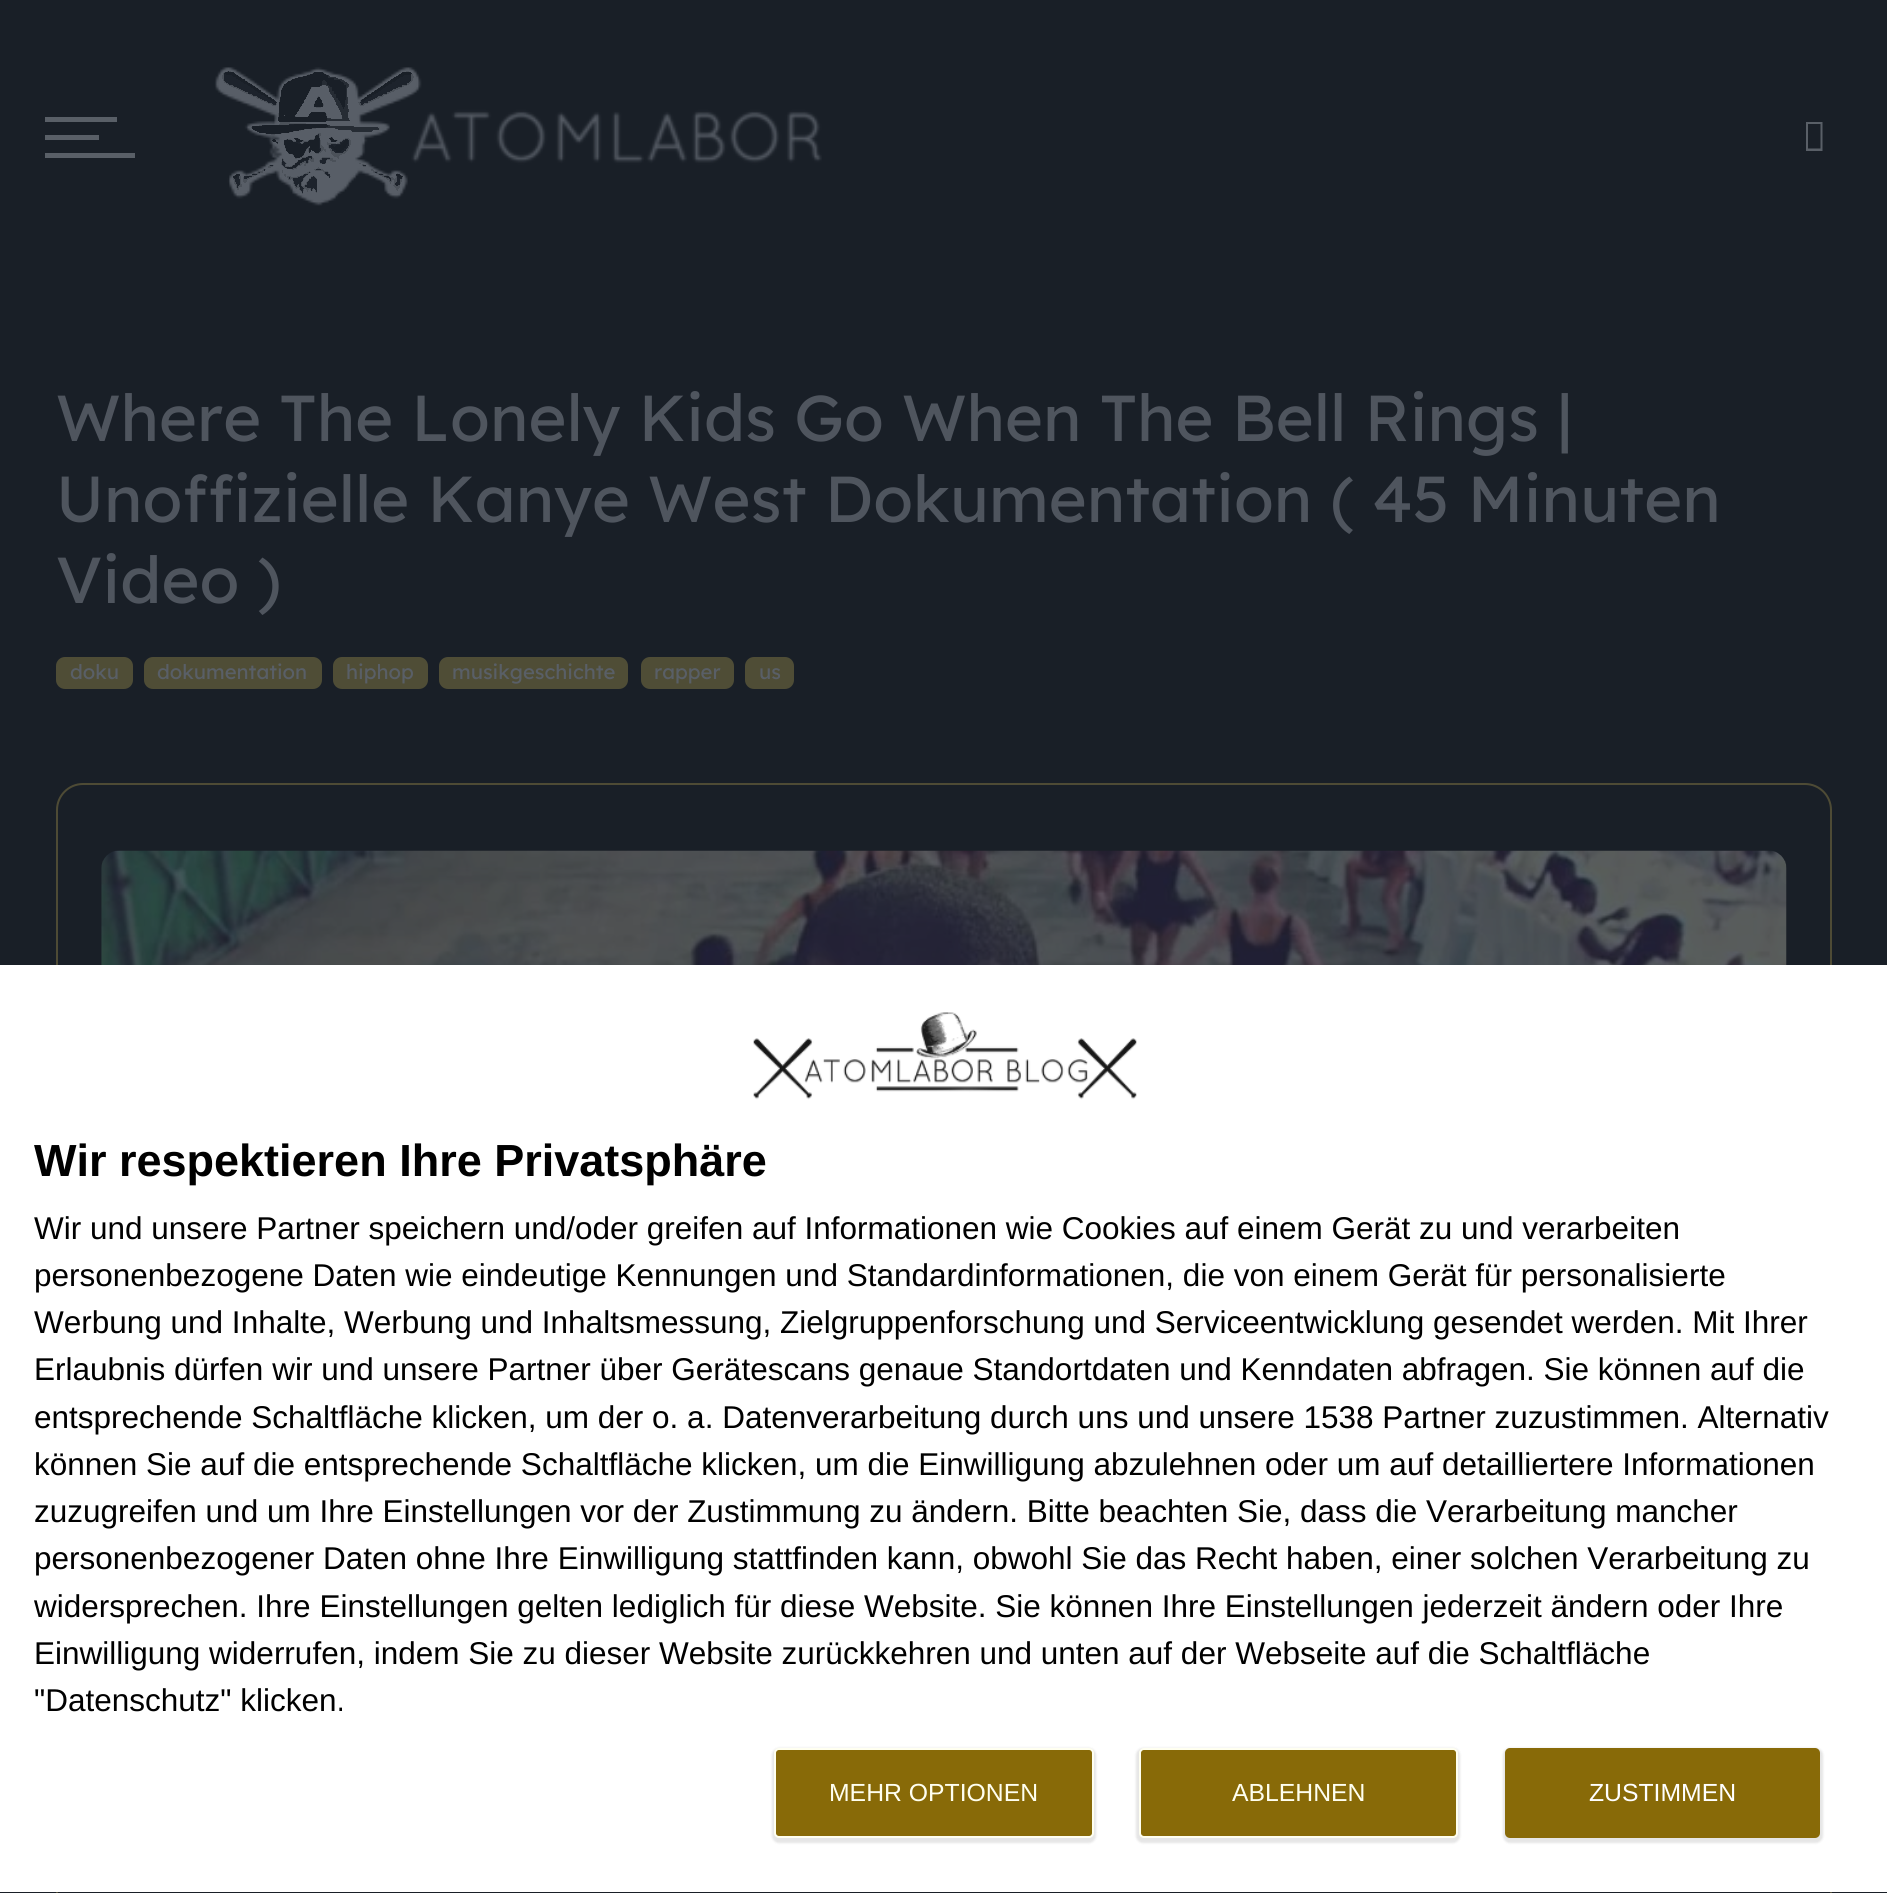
#include <cairo/cairo.h>
#include <math.h>
#include <stddef.h>

static cairo_t *cr;

static void use_color(int r, int g, int b) {
  cairo_set_source_rgb(cr, r / 255.0, g / 255.0, b / 255.0);
}

static void text(double x, double y, const char *s, const char *family, double size, int italic, int bold, int r, int g, int b) {
  cairo_select_font_face(cr, family, italic ? CAIRO_FONT_SLANT_ITALIC : CAIRO_FONT_SLANT_NORMAL,
    bold ? CAIRO_FONT_WEIGHT_BOLD : CAIRO_FONT_WEIGHT_NORMAL);
  cairo_set_font_size(cr, size);
  use_color(r, g, b);
  cairo_move_to(cr, x, y);
  cairo_show_text(cr, s);
}

static void box(double x, double y, double w, double h, int r, int g, int b) {
  use_color(r, g, b);
  cairo_rectangle(cr, x, y, w, h);
  cairo_fill(cr);
}

static void round_rect(double x, double y, double w, double h, double r) {
  cairo_new_sub_path(cr);
  cairo_arc(cr, x + w - r, y + h - r, r, 0, M_PI / 2);
  cairo_arc(cr, x + r, y + h - r, r, M_PI / 2, M_PI);
  cairo_arc(cr, x + r, y + r, r, M_PI, 1.5 * M_PI);
  cairo_arc(cr, x + w - r, y + r, r, 1.5 * M_PI, 2 * M_PI);
  cairo_close_path(cr);
}

static void shadow(double x, double y, double w, double h, double r, double blur, double alpha) {
  cairo_push_group_with_content(cr, CAIRO_CONTENT_ALPHA);
  cairo_set_operator(cr, CAIRO_OPERATOR_SOURCE);
  for (int i = 15; i >= -15 && fmin(w, h) + blur * i / 3 > 0; i -= 2) {
    double e = blur * i / 6;
    cairo_set_source_rgba(cr, 0, 0, 0, alpha * erfc((i - 1) / 8.5) / 2);
    round_rect(x - e, y - e, w + 2 * e, h + 2 * e, fmax(0, fmin(r + e + blur * .6, fmin(w, h) / 2 + e)));
    cairo_fill(cr);
  }
  cairo_pattern_t *soft = cairo_pop_group(cr);
  cairo_mask(cr, soft);
  cairo_pattern_destroy(soft);
}

static void picture(const char *path, double x, double y, double w, double h) {
  cairo_surface_t *image = cairo_image_surface_create_from_png(path);
  cairo_save(cr);
  cairo_set_source_surface(cr, image, x, y);
  cairo_rectangle(cr, x, y, w, h);
  cairo_fill(cr);
  cairo_restore(cr);
  cairo_surface_destroy(image);
}

static void draw(void) {
  use_color(25, 31, 39);
  cairo_paint(cr);
  use_color(89, 95, 103);
  cairo_new_path(cr);
  cairo_move_to(cr, 117, 122);
  cairo_line_to(cr, 117, 117);
  cairo_line_to(cr, 45, 117);
  cairo_line_to(cr, 45, 122);
  cairo_close_path(cr);
  cairo_move_to(cr, 135, 158);
  cairo_line_to(cr, 135, 153);
  cairo_line_to(cr, 45, 153);
  cairo_line_to(cr, 45, 158);
  cairo_close_path(cr);
  cairo_move_to(cr, 99, 140);
  cairo_line_to(cr, 99, 135);
  cairo_line_to(cr, 45, 135);
  cairo_line_to(cr, 45, 140);
  cairo_close_path(cr);
  cairo_fill(cr);
  picture("img_01.png", 214, 67, 608, 139);
  cairo_new_path(cr);
  cairo_move_to(cr, 1806, 151);
  cairo_line_to(cr, 1806, 122);
  cairo_line_to(cr, 1822.5, 122);
  cairo_line_to(cr, 1822.5, 151);
  cairo_close_path(cr);
  cairo_move_to(cr, 1808, 148.5);
  cairo_line_to(cr, 1820.5, 148.5);
  cairo_line_to(cr, 1820.5, 124);
  cairo_line_to(cr, 1808, 124);
  cairo_close_path(cr);
  cairo_fill(cr);
  use_color(79, 77, 54);
  round_rect(56, 657, 77, 32, 9);
  cairo_fill(cr);
  round_rect(144, 657, 178, 32, 9);
  cairo_fill(cr);
  round_rect(333, 657, 95, 32, 9);
  cairo_fill(cr);
  round_rect(439, 657, 189, 32, 9);
  cairo_fill(cr);
  round_rect(641, 657, 93, 32, 9);
  cairo_fill(cr);
  round_rect(745, 657, 49, 32, 9);
  cairo_fill(cr);
  round_rect(57, 784, 1774, 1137, 26);
  use_color(78, 75, 53);
  cairo_stroke(cr);
  picture("img_02.png", 101, 850, 1686, 115);
  box(0, 965, 1887, 927, 255, 255, 255);
  picture("img_03.png", 753, 1012, 384, 88);
  use_color(0, 0, 0);
  shadow(772, 1748, 324, 95, 7, 1, 0.1);
  use_color(136, 106, 8);
  round_rect(775, 1749, 318, 88, 4);
  cairo_fill_preserve(cr);
  use_color(255, 255, 240);
  cairo_stroke(cr);
  use_color(0, 0, 0);
  shadow(1136, 1748, 324, 95, 7, 1, 0.1);
  use_color(136, 106, 8);
  round_rect(1140, 1749, 317, 88, 4);
  cairo_fill_preserve(cr);
  use_color(255, 255, 240);
  cairo_stroke(cr);
  use_color(0, 0, 0);
  shadow(1503, 1748, 320, 95, 7, 1, 0.1);
  use_color(136, 106, 8);
  round_rect(1505, 1748, 315, 90, 5);
  cairo_fill(cr);
  text(56, 441, "Where The Lonely Kids Go When The Bell Rings |", "Lexend", 64.8, 0, 0, 79, 85, 94);
  text(56, 522, "Unoffizielle Kanye West Dokumentation ( 45 Minuten", "Lexend", 64.8, 0, 0, 79, 85, 94);
  text(56, 603, "Video )", "Lexend", 64.8, 0, 0, 79, 85, 94);
  text(70, 679, "doku", "Lexend", 20.25, 0, 0, 89, 95, 103);
  text(157, 679, "dokumentation", "Lexend", 20.25, 0, 0, 89, 95, 103);
  text(346, 679, "hiphop", "Lexend", 20.25, 0, 0, 89, 95, 103);
  text(452, 679, "musikgeschichte", "Lexend", 20.25, 0, 0, 89, 95, 103);
  text(654, 679, "rapper", "Lexend", 20.25, 0, 0, 89, 95, 103);
  text(759, 679, "us", "Lexend", 20.25, 0, 0, 89, 95, 103);
  text(34, 1176, "Wir respektieren Ihre Privatsphäre", "Liberation Sans", 45, 0, 1, 0, 0, 0);
  text(34, 1239, "Wir und unsere Partner speichern und/oder greifen auf Informationen wie Cookies auf einem Gerät zu und verarbeiten", "Liberation Sans", 31.5, 0, 0, 0, 0, 0);
  text(34, 1286, "personenbezogene Daten wie eindeutige Kennungen und Standardinformationen, die von einem Gerät für personalisierte", "Liberation Sans", 31.5, 0, 0, 0, 0, 0);
  text(34, 1333, "Werbung und Inhalte, Werbung und Inhaltsmessung, Zielgruppenforschung und Serviceentwicklung gesendet werden. Mit Ihrer", "Liberation Sans", 31.5, 0, 0, 0, 0, 0);
  text(34, 1380, "Erlaubnis dürfen wir und unsere Partner über Gerätescans genaue Standortdaten und Kenndaten abfragen. Sie können auf die", "Liberation Sans", 31.5, 0, 0, 0, 0, 0);
  text(34, 1428, "entsprechende Schaltfläche klicken, um der o. a. Datenverarbeitung durch uns und unsere 1538 Partner zuzustimmen. Alternativ", "Liberation Sans", 31.5, 0, 0, 0, 0, 0);
  text(34, 1475, "können Sie auf die entsprechende Schaltfläche klicken, um die Einwilligung abzulehnen oder um auf detailliertere Informationen", "Liberation Sans", 31.5, 0, 0, 0, 0, 0);
  text(34, 1522, "zuzugreifen und um Ihre Einstellungen vor der Zustimmung zu ändern. Bitte beachten Sie, dass die Verarbeitung mancher", "Liberation Sans", 31.5, 0, 0, 0, 0, 0);
  text(34, 1569, "personenbezogener Daten ohne Ihre Einwilligung stattfinden kann, obwohl Sie das Recht haben, einer solchen Verarbeitung zu", "Liberation Sans", 31.5, 0, 0, 0, 0, 0);
  text(34, 1617, "widersprechen. Ihre Einstellungen gelten lediglich für diese Website. Sie können Ihre Einstellungen jederzeit ändern oder Ihre", "Liberation Sans", 31.5, 0, 0, 0, 0, 0);
  text(34, 1664, "Einwilligung widerrufen, indem Sie zu dieser Website zurückkehren und unten auf der Webseite auf die Schaltfläche", "Liberation Sans", 31.5, 0, 0, 0, 0, 0);
  text(34, 1711, "\"Datenschutz\" klicken.", "Liberation Sans", 31.5, 0, 0, 0, 0, 0);
  text(829, 1801, "MEHR OPTIONEN", "Liberation Sans", 24.75, 0, 0, 255, 255, 240);
  text(1232, 1801, "ABLEHNEN", "Liberation Sans", 24.75, 0, 0, 255, 255, 240);
  text(1589, 1801, "ZUSTIMMEN", "Liberation Sans", 24.75, 0, 0, 255, 255, 255);
}

int main(void) {
  cairo_surface_t *surface = cairo_image_surface_create(CAIRO_FORMAT_RGB24, 1887, 1893);
  cr = cairo_create(surface);
  cairo_font_options_t *options = cairo_font_options_create();
  cairo_font_options_set_hint_metrics(options, CAIRO_HINT_METRICS_OFF);
  cairo_font_options_set_hint_style(options, CAIRO_HINT_STYLE_NONE);
  cairo_set_font_options(cr, options);
  cairo_set_miter_limit(cr, 4);
  draw();
  cairo_surface_write_to_png(surface, "out.png");
  cairo_font_options_destroy(options);
  cairo_destroy(cr);
  cairo_surface_destroy(surface);
  return 0;
}
